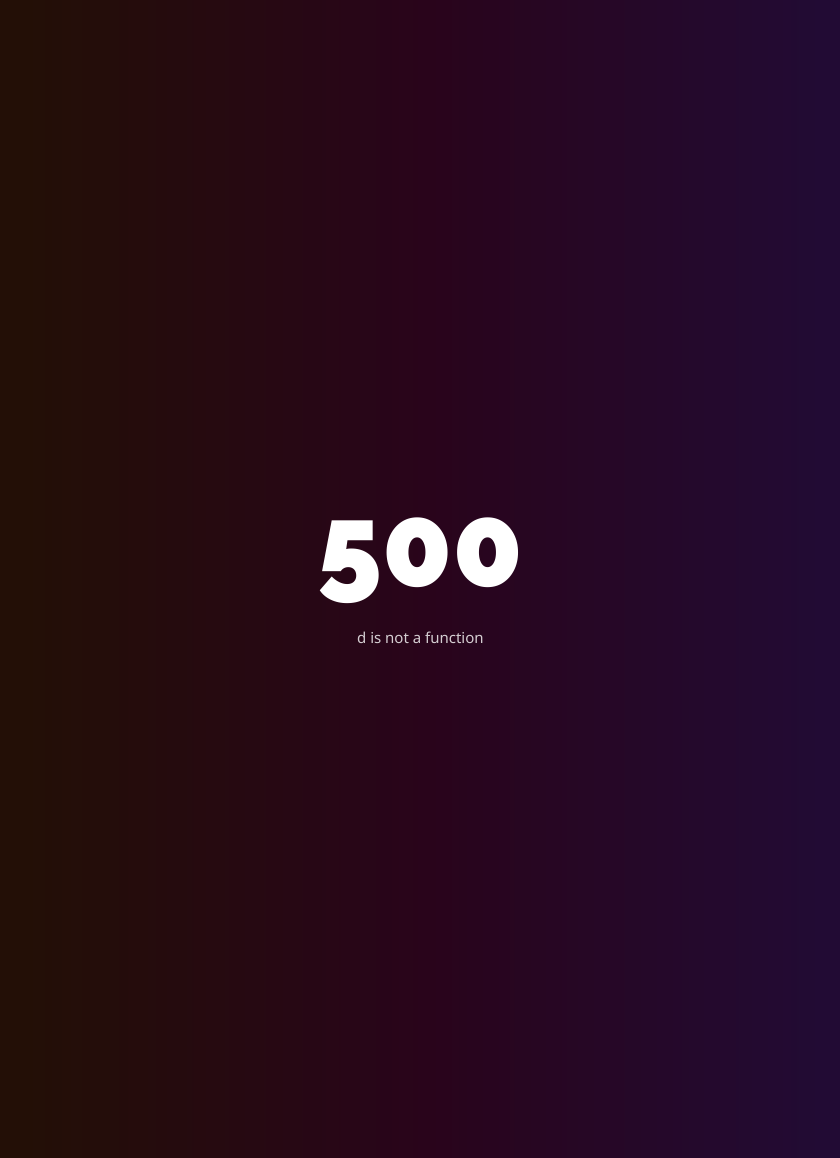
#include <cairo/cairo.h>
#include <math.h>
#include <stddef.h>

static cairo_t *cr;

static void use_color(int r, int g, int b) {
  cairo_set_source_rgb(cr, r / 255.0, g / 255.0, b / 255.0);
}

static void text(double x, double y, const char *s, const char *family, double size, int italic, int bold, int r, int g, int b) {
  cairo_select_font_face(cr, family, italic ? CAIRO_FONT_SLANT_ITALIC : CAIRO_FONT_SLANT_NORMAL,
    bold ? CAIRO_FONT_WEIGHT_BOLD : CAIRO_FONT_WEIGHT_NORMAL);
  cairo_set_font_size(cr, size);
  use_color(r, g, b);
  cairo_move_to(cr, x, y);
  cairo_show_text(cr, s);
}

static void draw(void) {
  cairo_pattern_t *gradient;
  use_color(255, 255, 255);
  cairo_paint(cr);
  gradient = cairo_pattern_create_linear(0, 579, 840, 579);
  cairo_pattern_add_color_stop_rgba(gradient, 0.03, 0.137, 0.059, 0.024, 1);
  cairo_pattern_add_color_stop_rgba(gradient, 0.51, 0.161, 0.016, 0.106, 1);
  cairo_pattern_add_color_stop_rgba(gradient, 0.98, 0.133, 0.043, 0.204, 1);
  cairo_set_source(cr, gradient);
  cairo_pattern_destroy(gradient);
  cairo_rectangle(cr, 0, 0, 840, 1158);
  cairo_fill(cr);
  text(317, 586, "500", "Raleway Thin", 115, 0, 0, 255, 255, 255);
  text(357, 643, "d is not a function", "Noto Sans", 15, 0, 0, 212, 205, 209);
}

int main(void) {
  cairo_surface_t *surface = cairo_image_surface_create(CAIRO_FORMAT_RGB24, 840, 1158);
  cr = cairo_create(surface);
  cairo_font_options_t *options = cairo_font_options_create();
  cairo_font_options_set_hint_metrics(options, CAIRO_HINT_METRICS_OFF);
  cairo_font_options_set_hint_style(options, CAIRO_HINT_STYLE_NONE);
  cairo_set_font_options(cr, options);
  cairo_set_miter_limit(cr, 4);
  draw();
  cairo_surface_write_to_png(surface, "out.png");
  cairo_font_options_destroy(options);
  cairo_destroy(cr);
  cairo_surface_destroy(surface);
  return 0;
}
